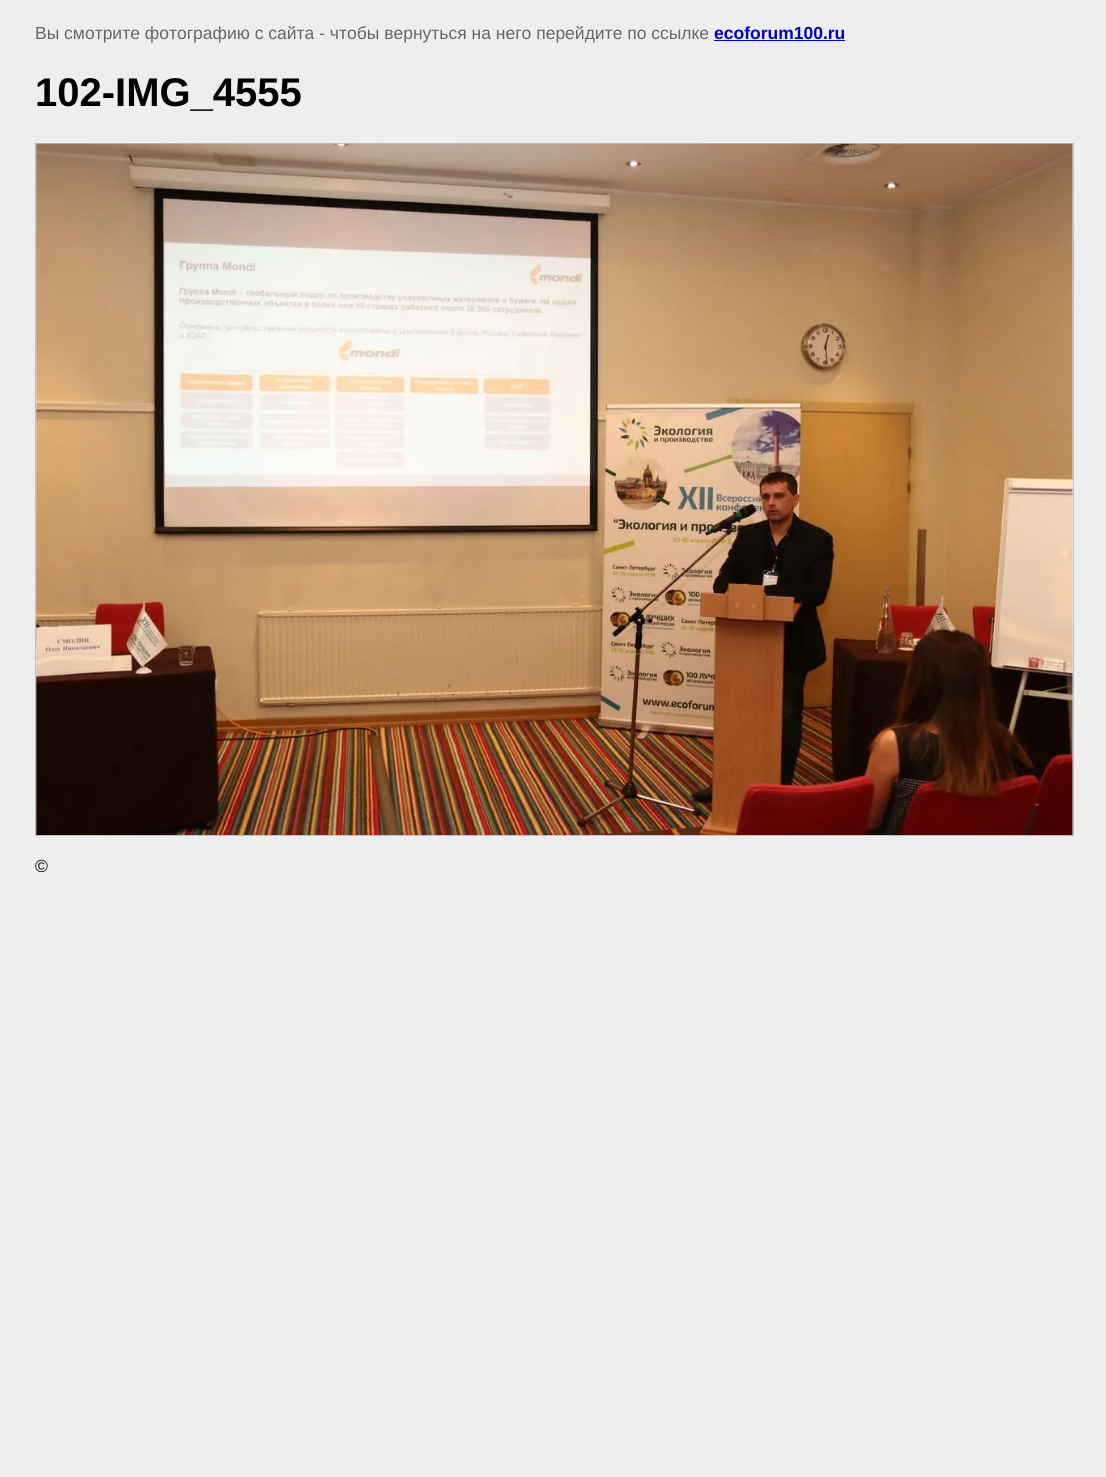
#include <cairo/cairo.h>
#include <math.h>
#include <stddef.h>

static cairo_t *cr;

static void use_color(int r, int g, int b) {
  cairo_set_source_rgb(cr, r / 255.0, g / 255.0, b / 255.0);
}

static void text(double x, double y, const char *s, const char *family, double size, int italic, int bold, int r, int g, int b) {
  cairo_select_font_face(cr, family, italic ? CAIRO_FONT_SLANT_ITALIC : CAIRO_FONT_SLANT_NORMAL,
    bold ? CAIRO_FONT_WEIGHT_BOLD : CAIRO_FONT_WEIGHT_NORMAL);
  cairo_set_font_size(cr, size);
  use_color(r, g, b);
  cairo_move_to(cr, x, y);
  cairo_show_text(cr, s);
}

static void box(double x, double y, double w, double h, int r, int g, int b) {
  use_color(r, g, b);
  cairo_rectangle(cr, x, y, w, h);
  cairo_fill(cr);
}

static void picture(const char *path, double x, double y, double w, double h) {
  cairo_surface_t *image = cairo_image_surface_create_from_png(path);
  cairo_save(cr);
  cairo_set_source_surface(cr, image, x, y);
  cairo_rectangle(cr, x, y, w, h);
  cairo_fill(cr);
  cairo_restore(cr);
  cairo_surface_destroy(image);
}

static void draw(void) {
  use_color(238, 238, 238);
  cairo_paint(cr);
  box(714, 40, 131, 1, 0, 0, 204);
  cairo_rectangle(cr, 35.5, 143.5, 1038, 692);
  use_color(192, 192, 192);
  cairo_set_line_width(cr, 1);
  cairo_stroke(cr);
  picture("img_01.png", 36, 143, 1037, 692);
  text(35, 39, "Вы смотрите фотографию с сайта - чтобы вернуться на него перейдите по ссылке", "Liberation Sans", 17.5, 0, 0, 102, 102, 102);
  text(714, 39, "ecoforum100.ru", "Liberation Sans", 17.5, 0, 1, 0, 0, 204);
  text(35, 106, "102-IMG_4555", "Liberation Sans", 40, 0, 1, 0, 0, 0);
  text(35, 872, "©", "Liberation Sans", 17.5, 0, 0, 0, 0, 0);
}

int main(void) {
  cairo_surface_t *surface = cairo_image_surface_create(CAIRO_FORMAT_RGB24, 1106, 1477);
  cr = cairo_create(surface);
  cairo_font_options_t *options = cairo_font_options_create();
  cairo_font_options_set_hint_metrics(options, CAIRO_HINT_METRICS_OFF);
  cairo_font_options_set_hint_style(options, CAIRO_HINT_STYLE_NONE);
  cairo_set_font_options(cr, options);
  cairo_set_miter_limit(cr, 4);
  draw();
  cairo_surface_write_to_png(surface, "out.png");
  cairo_font_options_destroy(options);
  cairo_destroy(cr);
  cairo_surface_destroy(surface);
  return 0;
}
